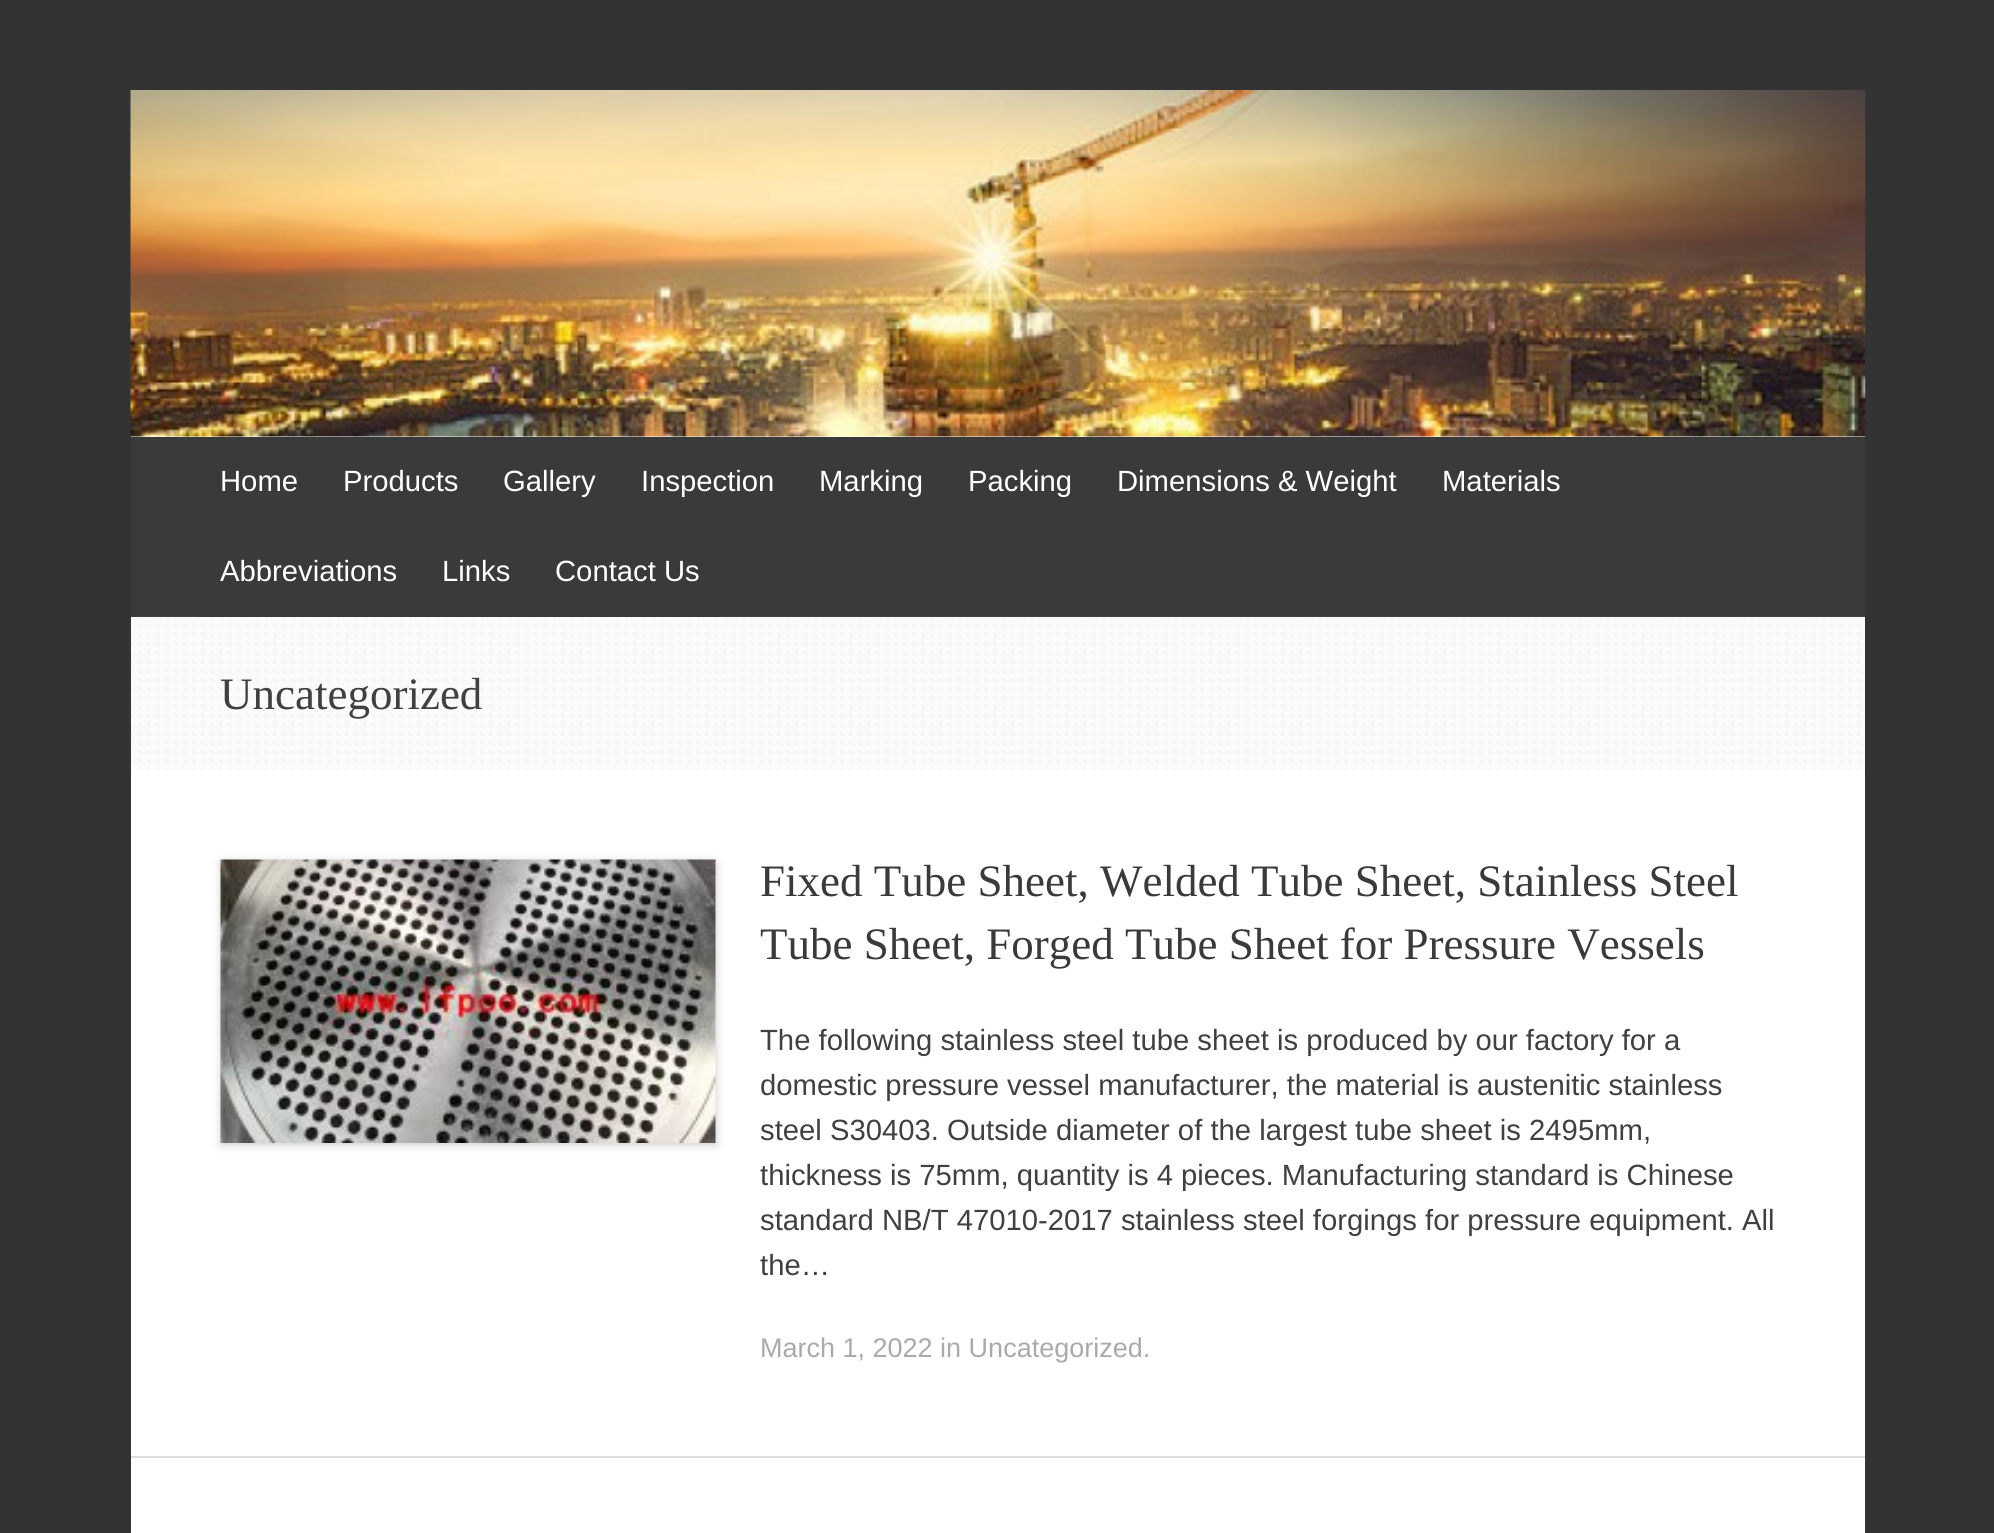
#include <cairo/cairo.h>
#include <math.h>
#include <stddef.h>

static cairo_t *cr;

static void use_color(int r, int g, int b) {
  cairo_set_source_rgb(cr, r / 255.0, g / 255.0, b / 255.0);
}

static void text(double x, double y, const char *s, const char *family, double size, int italic, int bold, int r, int g, int b) {
  cairo_select_font_face(cr, family, italic ? CAIRO_FONT_SLANT_ITALIC : CAIRO_FONT_SLANT_NORMAL,
    bold ? CAIRO_FONT_WEIGHT_BOLD : CAIRO_FONT_WEIGHT_NORMAL);
  cairo_set_font_size(cr, size);
  use_color(r, g, b);
  cairo_move_to(cr, x, y);
  cairo_show_text(cr, s);
}

static void box(double x, double y, double w, double h, int r, int g, int b) {
  use_color(r, g, b);
  cairo_rectangle(cr, x, y, w, h);
  cairo_fill(cr);
}

static void round_rect(double x, double y, double w, double h, double r) {
  cairo_new_sub_path(cr);
  cairo_arc(cr, x + w - r, y + h - r, r, 0, M_PI / 2);
  cairo_arc(cr, x + r, y + h - r, r, M_PI / 2, M_PI);
  cairo_arc(cr, x + r, y + r, r, M_PI, 1.5 * M_PI);
  cairo_arc(cr, x + w - r, y + r, r, 1.5 * M_PI, 2 * M_PI);
  cairo_close_path(cr);
}

static void shadow(double x, double y, double w, double h, double r, double blur, double alpha) {
  cairo_push_group_with_content(cr, CAIRO_CONTENT_ALPHA);
  cairo_set_operator(cr, CAIRO_OPERATOR_SOURCE);
  for (int i = 15; i >= -15 && fmin(w, h) + blur * i / 3 > 0; i -= 2) {
    double e = blur * i / 6;
    cairo_set_source_rgba(cr, 0, 0, 0, alpha * erfc((i - 1) / 8.5) / 2);
    round_rect(x - e, y - e, w + 2 * e, h + 2 * e, fmax(0, fmin(r + e + blur * .6, fmin(w, h) / 2 + e)));
    cairo_fill(cr);
  }
  cairo_pattern_t *soft = cairo_pop_group(cr);
  cairo_mask(cr, soft);
  cairo_pattern_destroy(soft);
}

static void picture(const char *path, double x, double y, double w, double h) {
  cairo_surface_t *image = cairo_image_surface_create_from_png(path);
  cairo_save(cr);
  cairo_set_source_surface(cr, image, x, y);
  cairo_rectangle(cr, x, y, w, h);
  cairo_fill(cr);
  cairo_restore(cr);
  cairo_surface_destroy(image);
}

static void draw(void) {
  use_color(51, 51, 51);
  cairo_paint(cr);
  box(131, 436, 1734, 1097, 255, 255, 255);
  picture("img_01.png", 130, 90, 1736, 347);
  box(131, 437, 1734, 180, 58, 58, 58);
  picture("img_02.png", 130, 616, 1735, 154);
  box(198, 616, 524, 1, 58, 58, 58);
  box(131, 1456, 1734, 2, 221, 221, 221);
  use_color(0, 0, 0);
  shadow(221, 862, 495, 283, 0, 4.5, 0.2);
  picture("img_03.png", 220, 859, 496, 284);
  text(220, 491, "Home", "Liberation Sans", 29.25, 0, 0, 255, 255, 255);
  text(343, 491, "Products", "Liberation Sans", 29.25, 0, 0, 255, 255, 255);
  text(503, 491, "Gallery", "Liberation Sans", 29.25, 0, 0, 255, 255, 255);
  text(641, 491, "Inspection", "Liberation Sans", 29.25, 0, 0, 255, 255, 255);
  text(819, 491, "Marking", "Liberation Sans", 29.25, 0, 0, 255, 255, 255);
  text(968, 491, "Packing", "Liberation Sans", 29.25, 0, 0, 255, 255, 255);
  text(1117, 491, "Dimensions & Weight", "Liberation Sans", 29.25, 0, 0, 255, 255, 255);
  text(1442, 491, "Materials", "Liberation Sans", 29.25, 0, 0, 255, 255, 255);
  text(220, 581, "Abbreviations", "Liberation Sans", 29.25, 0, 0, 255, 255, 255);
  text(442, 581, "Links", "Liberation Sans", 29.25, 0, 0, 255, 255, 255);
  text(555, 581, "Contact Us", "Liberation Sans", 29.25, 0, 0, 255, 255, 255);
  text(220, 709, "Uncategorized", "Liberation Serif", 45, 0, 0, 64, 64, 64);
  text(760, 896, "Fixed Tube Sheet, Welded Tube Sheet, Stainless Steel", "Liberation Serif", 45, 0, 0, 58, 58, 58);
  text(760, 959, "Tube Sheet, Forged Tube Sheet for Pressure Vessels", "Liberation Serif", 45, 0, 0, 58, 58, 58);
  text(760, 1050, "The following stainless steel tube sheet is produced by our factory for a", "Liberation Sans", 29.25, 0, 0, 64, 64, 64);
  text(760, 1095, "domestic pressure vessel manufacturer, the material is austenitic stainless", "Liberation Sans", 29.25, 0, 0, 64, 64, 64);
  text(760, 1140, "steel S30403. Outside diameter of the largest tube sheet is 2495mm,", "Liberation Sans", 29.25, 0, 0, 64, 64, 64);
  text(760, 1185, "thickness is 75mm, quantity is 4 pieces. Manufacturing standard is Chinese", "Liberation Sans", 29.25, 0, 0, 64, 64, 64);
  text(760, 1230, "standard NB/T 47010-2017 stainless steel forgings for pressure equipment. All", "Liberation Sans", 29.25, 0, 0, 64, 64, 64);
  text(760, 1275, "the…", "Liberation Sans", 29.25, 0, 0, 64, 64, 64);
  text(760, 1357, "March 1, 2022 in Uncategorized.", "Liberation Sans", 27, 0, 0, 170, 170, 170);
}

int main(void) {
  cairo_surface_t *surface = cairo_image_surface_create(CAIRO_FORMAT_RGB24, 1994, 1533);
  cr = cairo_create(surface);
  cairo_font_options_t *options = cairo_font_options_create();
  cairo_font_options_set_hint_metrics(options, CAIRO_HINT_METRICS_OFF);
  cairo_font_options_set_hint_style(options, CAIRO_HINT_STYLE_NONE);
  cairo_set_font_options(cr, options);
  cairo_set_miter_limit(cr, 4);
  draw();
  cairo_surface_write_to_png(surface, "out.png");
  cairo_font_options_destroy(options);
  cairo_destroy(cr);
  cairo_surface_destroy(surface);
  return 0;
}
